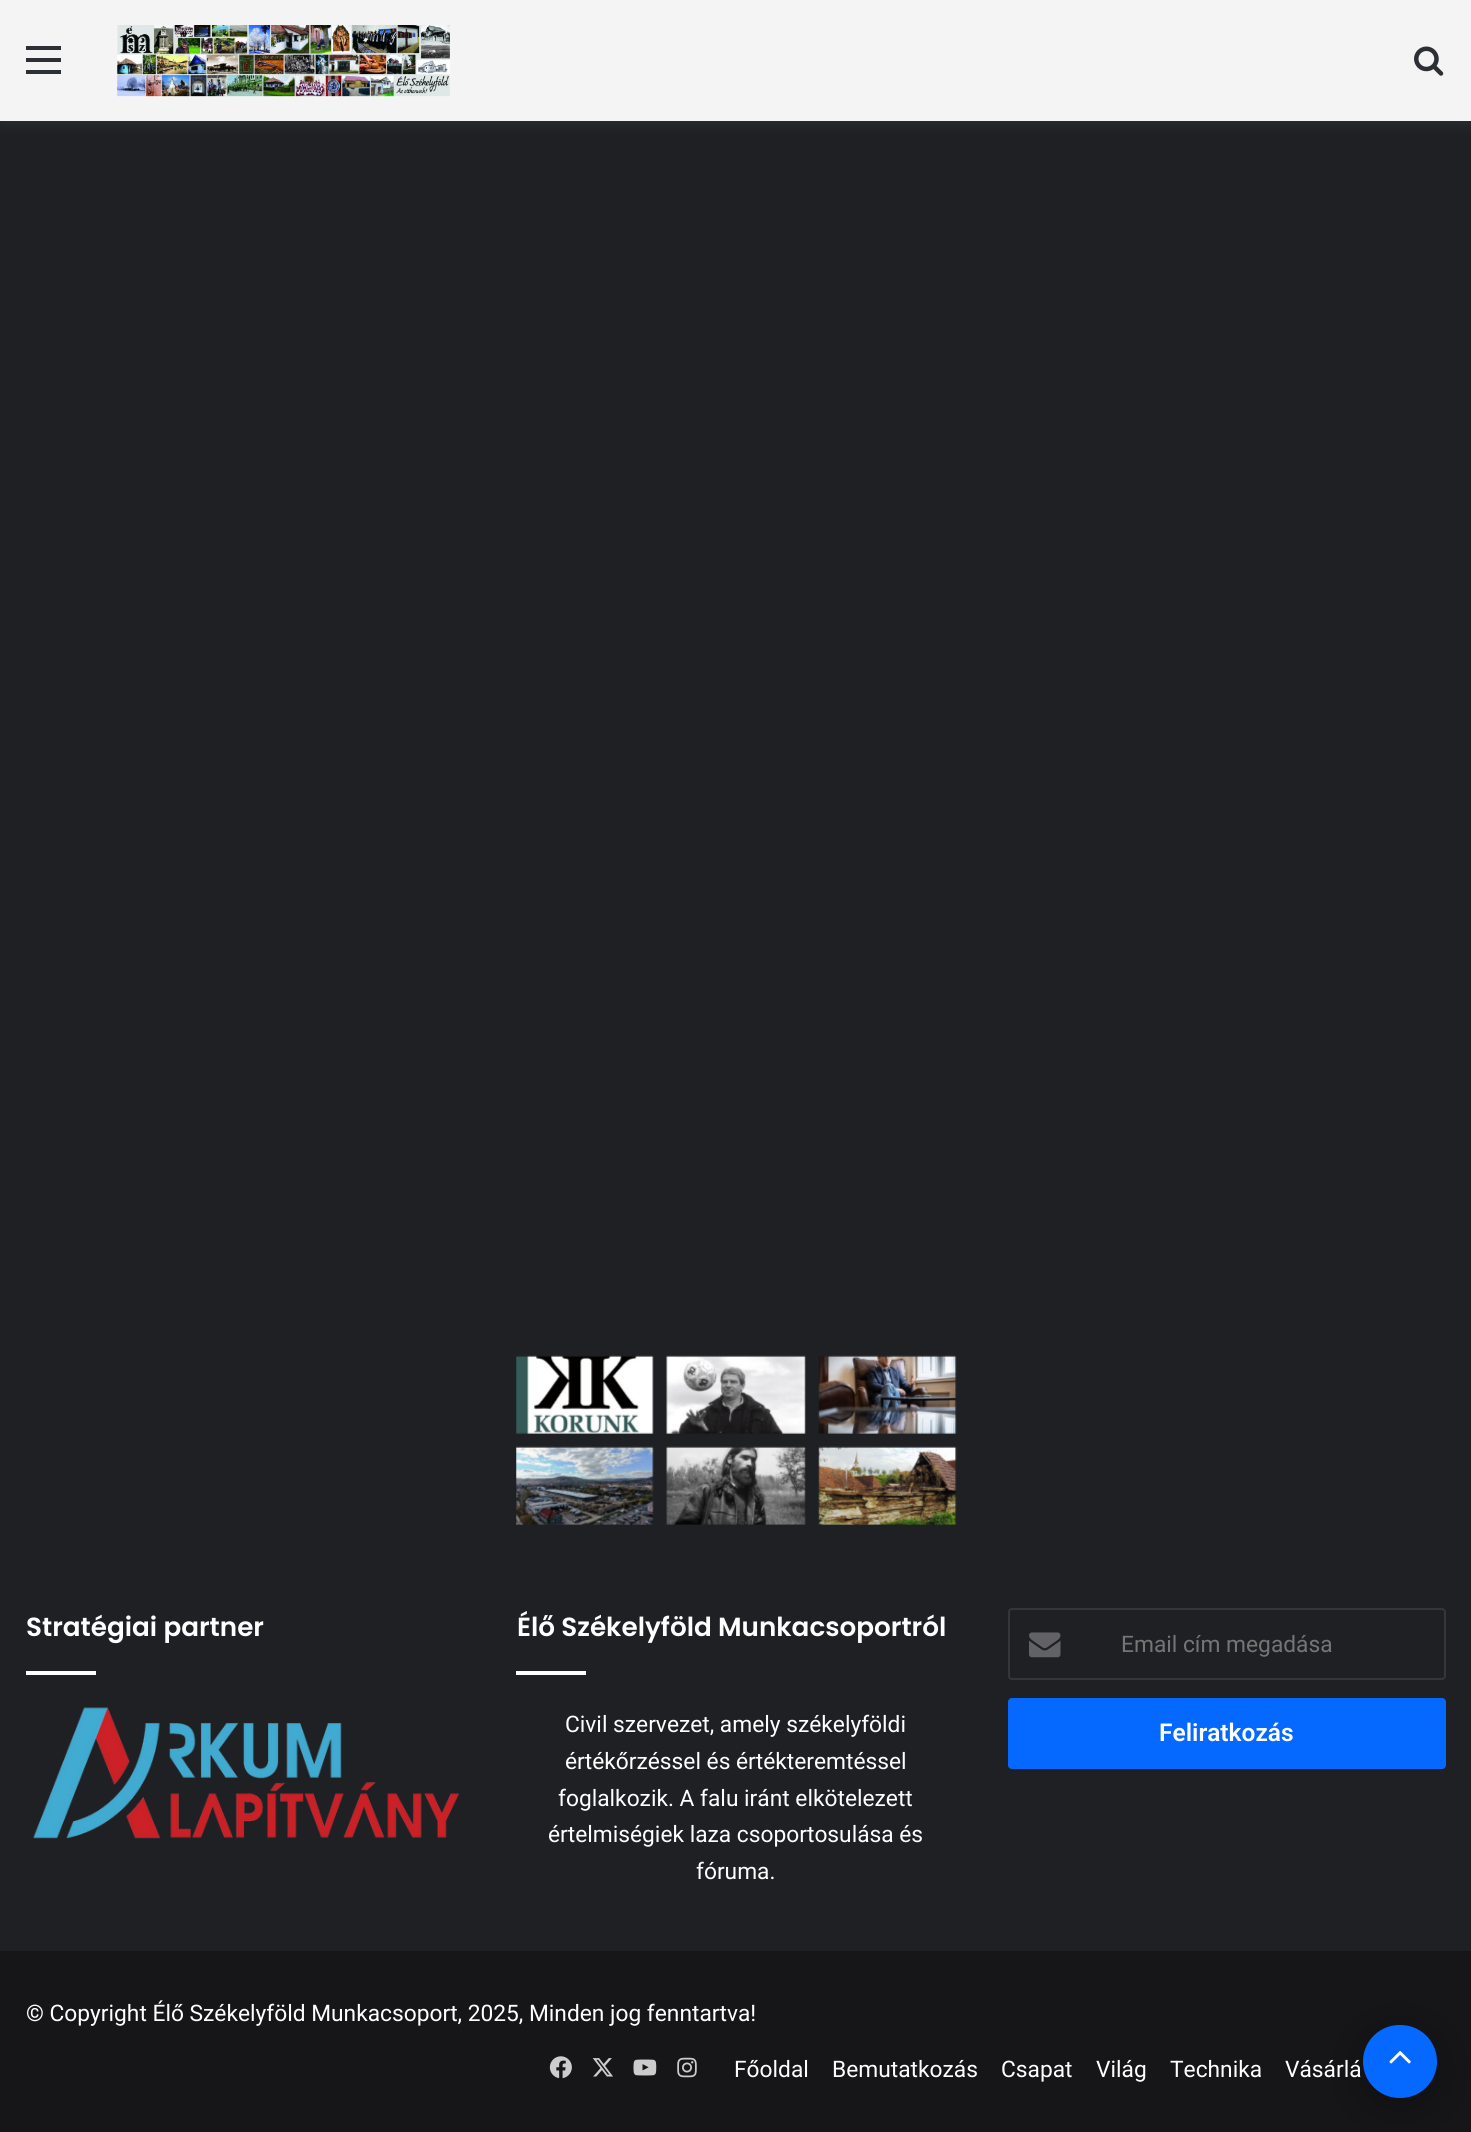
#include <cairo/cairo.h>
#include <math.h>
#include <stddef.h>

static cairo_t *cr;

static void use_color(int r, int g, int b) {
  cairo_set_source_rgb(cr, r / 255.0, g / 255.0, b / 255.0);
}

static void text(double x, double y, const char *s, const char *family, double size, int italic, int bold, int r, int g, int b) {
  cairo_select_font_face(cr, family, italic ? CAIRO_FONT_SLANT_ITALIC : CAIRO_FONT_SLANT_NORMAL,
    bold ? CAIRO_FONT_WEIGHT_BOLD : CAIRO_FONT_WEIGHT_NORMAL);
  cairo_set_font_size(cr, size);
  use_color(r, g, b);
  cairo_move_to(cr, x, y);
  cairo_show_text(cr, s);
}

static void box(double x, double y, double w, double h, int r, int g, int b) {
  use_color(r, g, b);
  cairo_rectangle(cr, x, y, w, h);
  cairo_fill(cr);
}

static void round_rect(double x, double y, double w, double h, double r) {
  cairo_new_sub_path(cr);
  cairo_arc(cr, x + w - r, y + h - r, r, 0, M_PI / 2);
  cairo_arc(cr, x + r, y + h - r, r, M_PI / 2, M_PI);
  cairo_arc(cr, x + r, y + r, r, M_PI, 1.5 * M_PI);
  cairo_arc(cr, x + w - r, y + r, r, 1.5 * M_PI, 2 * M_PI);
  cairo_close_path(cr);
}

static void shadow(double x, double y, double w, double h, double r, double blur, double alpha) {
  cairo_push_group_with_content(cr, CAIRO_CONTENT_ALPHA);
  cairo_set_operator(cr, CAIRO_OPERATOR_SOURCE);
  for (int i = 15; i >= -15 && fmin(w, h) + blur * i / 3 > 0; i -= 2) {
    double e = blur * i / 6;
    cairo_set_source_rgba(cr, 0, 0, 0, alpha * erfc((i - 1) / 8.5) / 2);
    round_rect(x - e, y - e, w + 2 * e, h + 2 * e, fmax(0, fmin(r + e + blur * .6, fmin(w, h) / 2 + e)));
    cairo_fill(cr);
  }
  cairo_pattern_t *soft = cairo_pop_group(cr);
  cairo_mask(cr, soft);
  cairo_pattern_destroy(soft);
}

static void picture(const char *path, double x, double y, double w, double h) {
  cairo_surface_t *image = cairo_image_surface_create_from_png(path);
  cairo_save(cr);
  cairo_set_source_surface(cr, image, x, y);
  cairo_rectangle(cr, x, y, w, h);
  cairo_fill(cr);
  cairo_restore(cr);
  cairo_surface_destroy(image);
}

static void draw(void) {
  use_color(31, 32, 36);
  cairo_paint(cr);
  use_color(99, 99, 99);
  shadow(0, 4, 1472, 120, 0, 7, 0.2);
  box(0, 0, 1471, 121, 244, 244, 244);
  box(26, 58, 35, 4, 44, 47, 52);
  box(26, 46, 35, 4, 44, 47, 52);
  box(26, 70, 35, 4, 44, 47, 52);
  picture("img_01.png", 117, 25, 333, 72);
  picture("img_02.png", 1414, 46, 30, 30);
  picture("img_03.png", 516, 1355, 138, 79);
  picture("img_04.png", 666, 1355, 140, 79);
  picture("img_05.png", 818, 1355, 139, 79);
  picture("img_06.png", 516, 1446, 138, 79);
  picture("img_07.png", 666, 1446, 140, 79);
  picture("img_08.png", 818, 1446, 139, 79);
  box(26, 1671, 70, 4, 255, 255, 255);
  picture("img_09.png", 33, 1707, 427, 132);
  box(516, 1671, 70, 4, 255, 255, 255);
  round_rect(1009, 1609, 436, 70, 3);
  use_color(53, 54, 58);
  cairo_stroke(cr);
  picture("img_10.png", 1029, 1632, 32, 26);
  use_color(6, 105, 255);
  round_rect(1008, 1698, 438, 71, 4);
  cairo_fill(cr);
  box(0, 1951, 1471, 181, 22, 22, 25);
  picture("img_11.png", 549, 2056, 23, 23);
  picture("img_12.png", 592, 2058, 21, 19);
  picture("img_13.png", 633, 2059, 24, 17);
  picture("img_14.png", 677, 2057, 20, 21);
  use_color(0, 0, 0);
  shadow(1363, 2034, 74, 73, 36.5, 22, 0.3);
  use_color(6, 105, 255);
  round_rect(1363, 2025, 74, 73, 36.5);
  cairo_fill(cr);
  picture("img_15.png", 1389, 2051, 22, 13);
  text(26, 1636, "Stratégiai partner", "Poppins SemiBold", 26.25, 0, 0, 255, 255, 255);
  text(517, 1636, "Élő Székelyföld Munkacsoportról", "Poppins SemiBold", 26.25, 0, 0, 255, 255, 255);
  text(565, 1732, "Civil szervezet, amely székelyföldi", "Roboto", 22.75, 0, 0, 255, 255, 255);
  text(565, 1769, "értékőrzéssel és értékteremtéssel", "Roboto", 22.75, 0, 0, 255, 255, 255);
  text(558, 1806, "foglalkozik. A falu iránt elkötelezett", "Roboto", 22.75, 0, 0, 255, 255, 255);
  text(548, 1842, "értelmiségiek laza csoportosulása és", "Roboto", 22.75, 0, 0, 255, 255, 255);
  text(696, 1879, "fóruma.", "Roboto", 22.75, 0, 0, 255, 255, 255);
  text(1121, 1652, "Email cím megadása", "Roboto", 22.75, 0, 0, 117, 117, 117);
  text(1159, 1741, "Feliratkozás", "Roboto SemiBold", 24.5, 0, 0, 255, 255, 255);
  text(26, 2021, "© Copyright Élő Székelyföld Munkacsoport, 2025, Minden jog fenntartva!", "Roboto", 22.75, 0, 0, 255, 255, 255);
  text(734, 2077, "Főoldal", "Roboto", 22.75, 0, 0, 255, 255, 255);
  text(832, 2077, "Bemutatkozás", "Roboto", 22.75, 0, 0, 255, 255, 255);
  text(1001, 2077, "Csapat", "Roboto", 22.75, 0, 0, 255, 255, 255);
  text(1096, 2077, "Világ", "Roboto", 22.75, 0, 0, 255, 255, 255);
  text(1170, 2077, "Technika", "Roboto", 22.75, 0, 0, 255, 255, 255);
  text(1285, 2077, "Vásárlá", "Roboto", 22.75, 0, 0, 255, 255, 255);
}

int main(void) {
  cairo_surface_t *surface = cairo_image_surface_create(CAIRO_FORMAT_RGB24, 1471, 2132);
  cr = cairo_create(surface);
  cairo_font_options_t *options = cairo_font_options_create();
  cairo_font_options_set_hint_metrics(options, CAIRO_HINT_METRICS_OFF);
  cairo_font_options_set_hint_style(options, CAIRO_HINT_STYLE_NONE);
  cairo_set_font_options(cr, options);
  cairo_set_miter_limit(cr, 4);
  draw();
  cairo_surface_write_to_png(surface, "out.png");
  cairo_font_options_destroy(options);
  cairo_destroy(cr);
  cairo_surface_destroy(surface);
  return 0;
}
